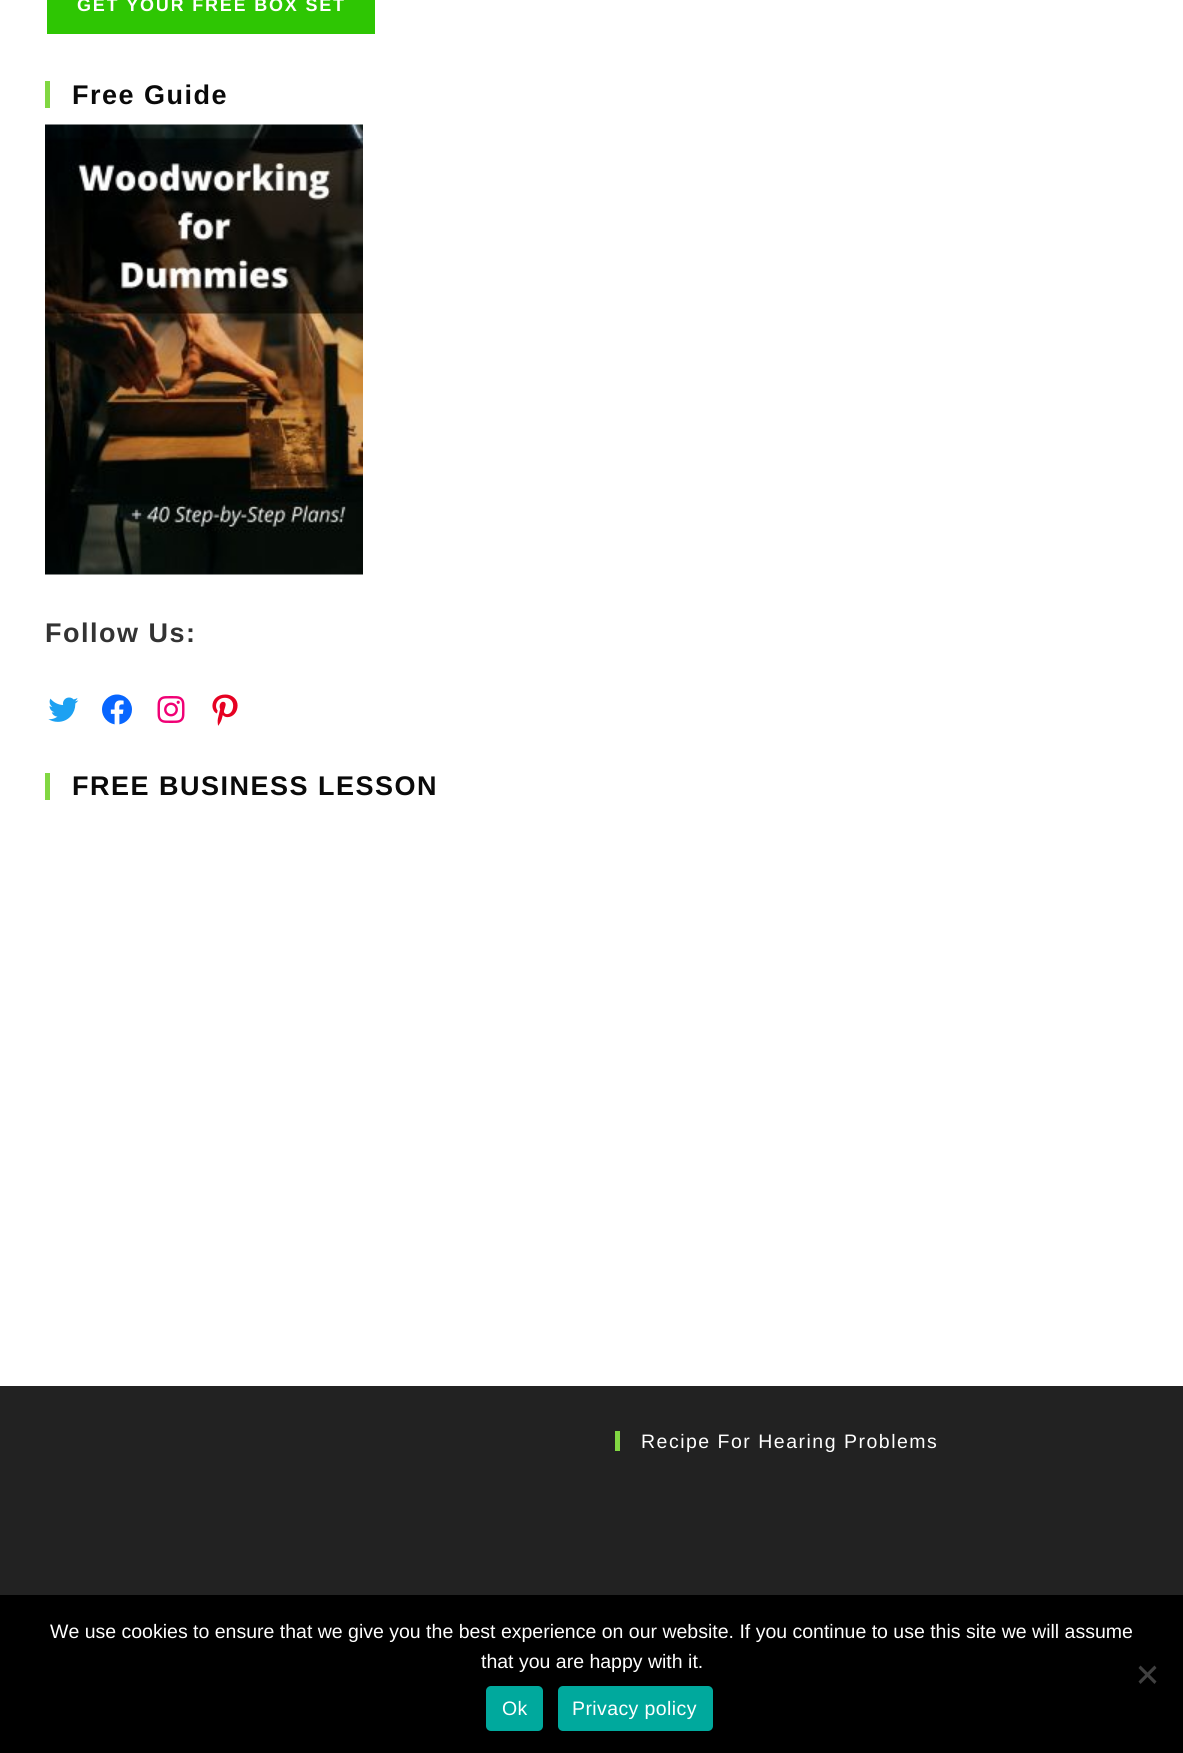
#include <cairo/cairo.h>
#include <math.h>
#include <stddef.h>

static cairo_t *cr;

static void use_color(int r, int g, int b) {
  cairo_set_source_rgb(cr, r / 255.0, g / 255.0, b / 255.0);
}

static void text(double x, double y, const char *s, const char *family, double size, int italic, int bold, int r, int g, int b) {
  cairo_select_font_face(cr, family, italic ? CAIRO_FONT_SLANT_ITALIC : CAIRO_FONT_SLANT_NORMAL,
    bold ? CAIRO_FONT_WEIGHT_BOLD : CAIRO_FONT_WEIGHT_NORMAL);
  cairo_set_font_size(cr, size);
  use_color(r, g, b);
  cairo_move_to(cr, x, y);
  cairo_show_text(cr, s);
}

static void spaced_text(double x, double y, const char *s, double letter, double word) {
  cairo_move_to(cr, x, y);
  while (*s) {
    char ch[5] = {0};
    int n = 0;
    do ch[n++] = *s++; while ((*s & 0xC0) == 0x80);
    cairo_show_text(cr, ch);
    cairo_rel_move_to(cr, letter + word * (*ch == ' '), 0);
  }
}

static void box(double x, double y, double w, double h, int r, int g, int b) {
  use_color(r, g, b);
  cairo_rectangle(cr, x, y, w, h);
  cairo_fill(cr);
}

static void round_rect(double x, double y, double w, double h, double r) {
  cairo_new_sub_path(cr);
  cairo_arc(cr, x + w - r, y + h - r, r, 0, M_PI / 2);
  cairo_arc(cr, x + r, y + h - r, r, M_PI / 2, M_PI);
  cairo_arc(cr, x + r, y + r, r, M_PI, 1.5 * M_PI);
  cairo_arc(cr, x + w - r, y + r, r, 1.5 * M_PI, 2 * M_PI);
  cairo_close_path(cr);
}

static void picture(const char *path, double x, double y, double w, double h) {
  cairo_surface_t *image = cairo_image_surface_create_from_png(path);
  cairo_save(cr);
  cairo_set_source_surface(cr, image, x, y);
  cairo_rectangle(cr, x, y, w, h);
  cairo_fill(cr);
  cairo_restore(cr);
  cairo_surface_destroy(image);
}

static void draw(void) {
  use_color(255, 255, 255);
  cairo_paint(cr);
  box(47, 0, 328, 34, 46, 198, 3);
  box(45, 81, 5, 27, 129, 215, 66);
  picture("img_01.png", 45, 124, 318, 451);
  picture("img_02.png", 48, 697, 31, 25);
  picture("img_03.png", 102, 694, 30, 31);
  picture("img_04.png", 157, 696, 28, 27);
  picture("img_05.png", 212, 694, 26, 32);
  box(45, 773, 5, 27, 129, 215, 66);
  box(0, 1386, 1183, 209, 34, 34, 34);
  box(615, 1431, 5, 20, 129, 215, 66);
  box(0, 1595, 1183, 158, 0, 0, 0);
  use_color(64, 64, 64);
  cairo_new_path(cr);
  cairo_move_to(cr, 1154.5, 1665.5);
  cairo_line_to(cr, 1156.5, 1668);
  cairo_line_to(cr, 1140.5, 1684);
  cairo_line_to(cr, 1138.5, 1681.5);
  cairo_close_path(cr);
  cairo_fill(cr);
  cairo_new_path(cr);
  cairo_move_to(cr, 1138.5, 1668);
  cairo_line_to(cr, 1140.5, 1665.5);
  cairo_line_to(cr, 1156.5, 1681.5);
  cairo_line_to(cr, 1154.5, 1684);
  cairo_close_path(cr);
  cairo_fill(cr);
  use_color(0, 169, 157);
  round_rect(486, 1686, 57, 45, 5);
  cairo_fill(cr);
  round_rect(558, 1686, 155, 45, 5);
  cairo_fill(cr);
  cairo_select_font_face(cr, "Liberation Sans", CAIRO_FONT_SLANT_NORMAL, CAIRO_FONT_WEIGHT_BOLD);
  cairo_set_font_size(cr, 18);
  use_color(255, 255, 255);
  spaced_text(77, 11, "GET YOUR FREE BOX SET", 1.8, 0);
  cairo_set_font_size(cr, 27);
  use_color(10, 10, 10);
  spaced_text(72, 104, "Free Guide", 1.5, 0);
  use_color(51, 51, 51);
  spaced_text(45, 642, "Follow Us:", 1.5, 0);
  use_color(10, 10, 10);
  spaced_text(72, 795, "FREE BUSINESS LESSON", 1.5, 0);
  cairo_select_font_face(cr, "Liberation Sans", CAIRO_FONT_SLANT_NORMAL, CAIRO_FONT_WEIGHT_NORMAL);
  cairo_set_font_size(cr, 19.5);
  use_color(255, 255, 255);
  spaced_text(641, 1448, "Recipe For Hearing Problems", 1.5, 0);
  text(50, 1638, "We use cookies to ensure that we give you the best experience on our website. If you continue to use this site we will assume", "Liberation Sans", 19.5, 0, 0, 255, 255, 255);
  text(481, 1668, "that you are happy with it.", "Liberation Sans", 19.5, 0, 0, 255, 255, 255);
  spaced_text(502, 1715, "Ok", 0.4, 0);
  spaced_text(572, 1715, "Privacy policy", 0.4, 0);
}

int main(void) {
  cairo_surface_t *surface = cairo_image_surface_create(CAIRO_FORMAT_RGB24, 1183, 1753);
  cr = cairo_create(surface);
  cairo_font_options_t *options = cairo_font_options_create();
  cairo_font_options_set_hint_metrics(options, CAIRO_HINT_METRICS_OFF);
  cairo_font_options_set_hint_style(options, CAIRO_HINT_STYLE_NONE);
  cairo_set_font_options(cr, options);
  cairo_set_miter_limit(cr, 4);
  draw();
  cairo_surface_write_to_png(surface, "out.png");
  cairo_font_options_destroy(options);
  cairo_destroy(cr);
  cairo_surface_destroy(surface);
  return 0;
}
